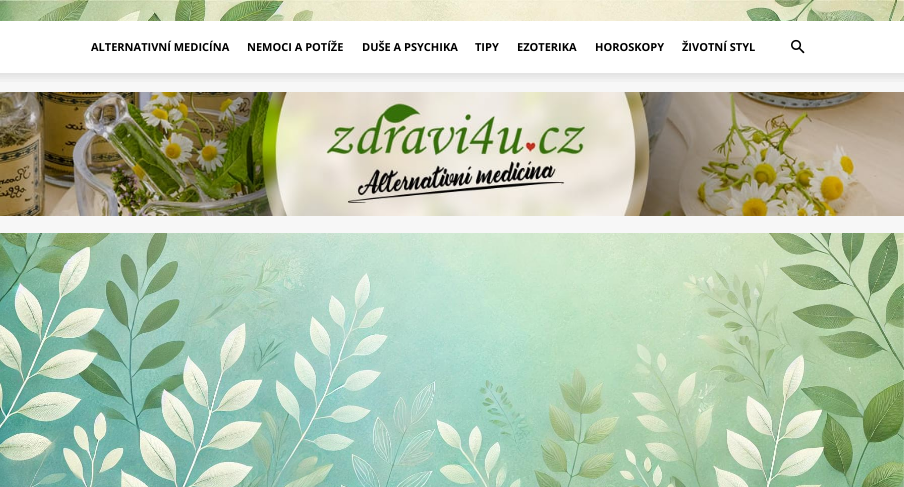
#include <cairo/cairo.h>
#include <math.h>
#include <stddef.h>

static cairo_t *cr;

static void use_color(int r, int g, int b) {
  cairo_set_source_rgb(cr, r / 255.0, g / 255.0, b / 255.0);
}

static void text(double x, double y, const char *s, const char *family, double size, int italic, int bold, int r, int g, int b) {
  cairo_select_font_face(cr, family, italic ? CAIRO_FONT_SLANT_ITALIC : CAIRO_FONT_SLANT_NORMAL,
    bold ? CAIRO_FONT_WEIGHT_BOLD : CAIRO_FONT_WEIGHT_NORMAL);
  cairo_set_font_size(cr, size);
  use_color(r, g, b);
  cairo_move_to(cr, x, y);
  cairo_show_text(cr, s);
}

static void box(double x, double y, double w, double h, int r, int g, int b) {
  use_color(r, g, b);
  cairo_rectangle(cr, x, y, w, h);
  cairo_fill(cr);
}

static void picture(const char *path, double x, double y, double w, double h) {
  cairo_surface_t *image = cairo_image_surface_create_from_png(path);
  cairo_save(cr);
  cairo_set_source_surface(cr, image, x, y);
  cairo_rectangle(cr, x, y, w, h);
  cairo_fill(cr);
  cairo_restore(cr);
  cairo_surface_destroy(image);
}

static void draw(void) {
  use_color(255, 255, 255);
  cairo_paint(cr);
  picture("img_01.png", 0, 0, 904, 487);
  box(0, 21, 904, 52, 255, 255, 255);
  picture("img_02.png", 791, 39, 14, 15);
  box(0, 73, 904, 160, 247, 247, 247);
  picture("img_03.png", 0, 73, 904, 9);
  picture("img_04.png", 0, 92, 904, 124);
  text(91, 51, "ALTERNATIVNÍ MEDICÍNA", "Open Sans", 11, 0, 1, 0, 0, 0);
  text(247, 51, "NEMOCI A POTÍŽE", "Open Sans", 11, 0, 1, 0, 0, 0);
  text(362, 51, "DUŠE A PSYCHIKA", "Open Sans", 11, 0, 1, 0, 0, 0);
  text(475, 51, "TIPY", "Open Sans", 11, 0, 1, 0, 0, 0);
  text(517, 51, "EZOTERIKA", "Open Sans", 11, 0, 1, 0, 0, 0);
  text(595, 51, "HOROSKOPY", "Open Sans", 11, 0, 1, 0, 0, 0);
  text(682, 51, "ŽIVOTNÍ STYL", "Open Sans", 11, 0, 1, 0, 0, 0);
}

int main(void) {
  cairo_surface_t *surface = cairo_image_surface_create(CAIRO_FORMAT_RGB24, 904, 487);
  cr = cairo_create(surface);
  cairo_font_options_t *options = cairo_font_options_create();
  cairo_font_options_set_hint_metrics(options, CAIRO_HINT_METRICS_OFF);
  cairo_font_options_set_hint_style(options, CAIRO_HINT_STYLE_NONE);
  cairo_set_font_options(cr, options);
  cairo_set_miter_limit(cr, 4);
  draw();
  cairo_surface_write_to_png(surface, "out.png");
  cairo_font_options_destroy(options);
  cairo_destroy(cr);
  cairo_surface_destroy(surface);
  return 0;
}
